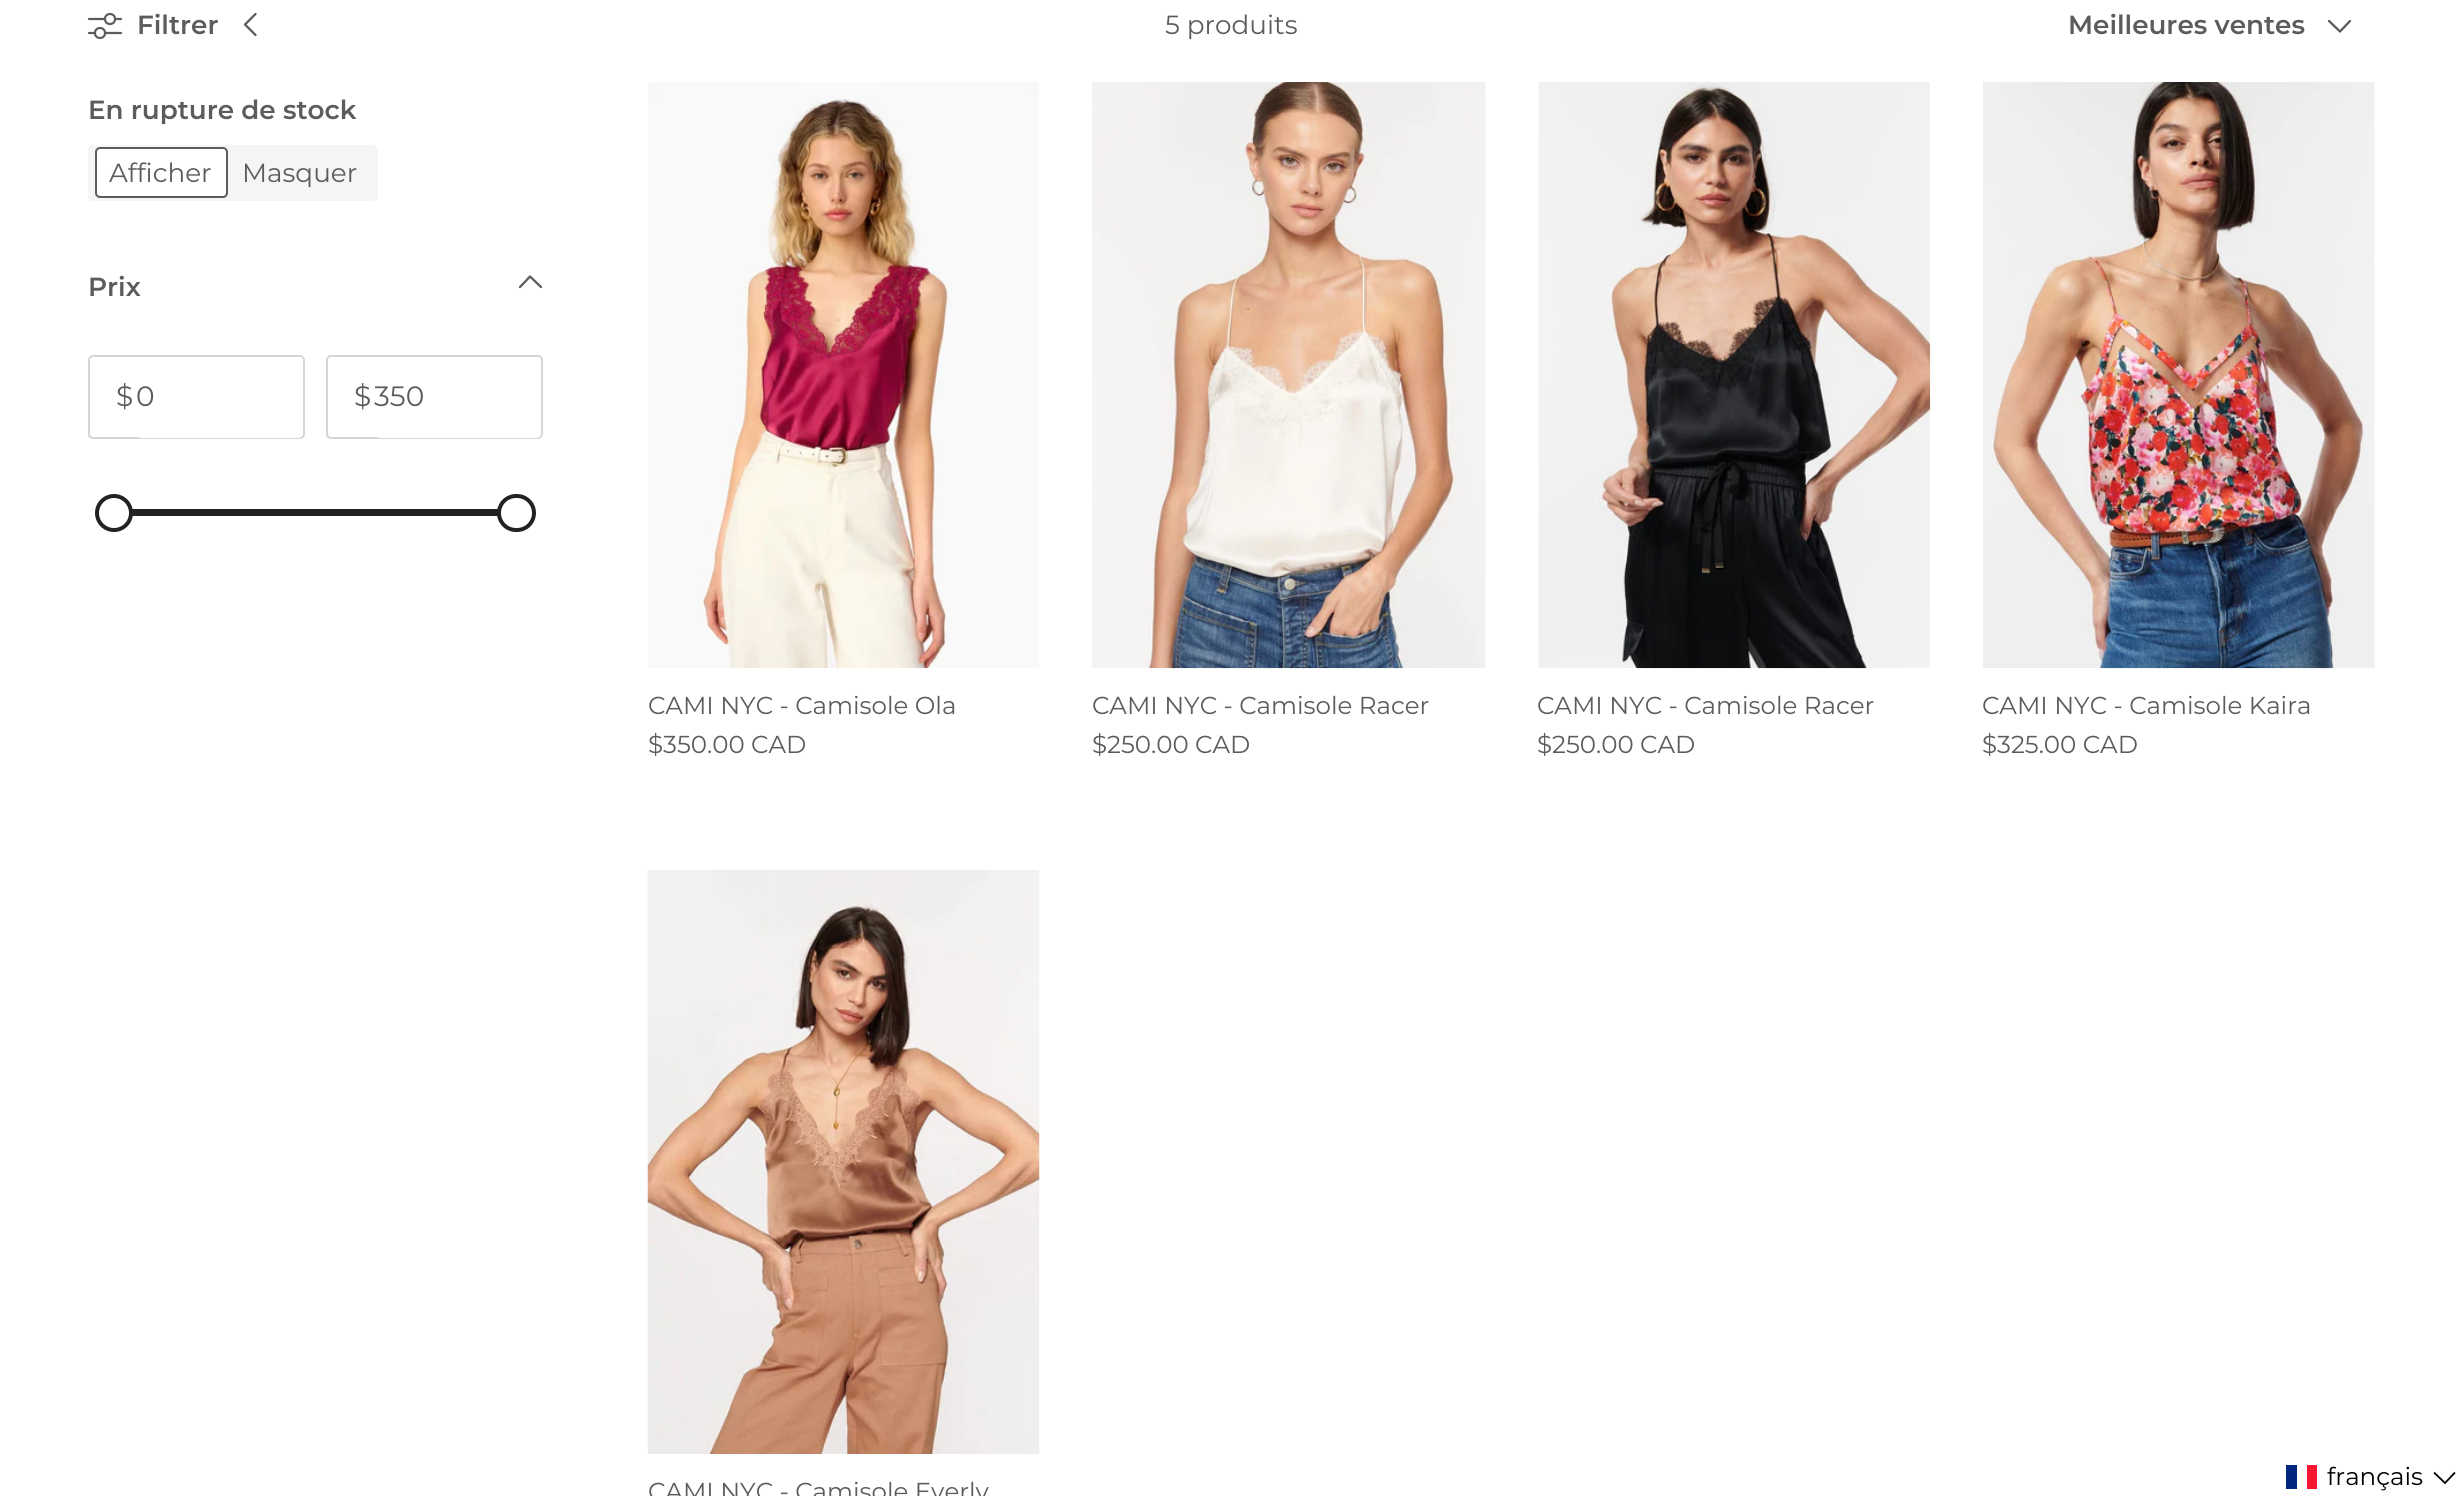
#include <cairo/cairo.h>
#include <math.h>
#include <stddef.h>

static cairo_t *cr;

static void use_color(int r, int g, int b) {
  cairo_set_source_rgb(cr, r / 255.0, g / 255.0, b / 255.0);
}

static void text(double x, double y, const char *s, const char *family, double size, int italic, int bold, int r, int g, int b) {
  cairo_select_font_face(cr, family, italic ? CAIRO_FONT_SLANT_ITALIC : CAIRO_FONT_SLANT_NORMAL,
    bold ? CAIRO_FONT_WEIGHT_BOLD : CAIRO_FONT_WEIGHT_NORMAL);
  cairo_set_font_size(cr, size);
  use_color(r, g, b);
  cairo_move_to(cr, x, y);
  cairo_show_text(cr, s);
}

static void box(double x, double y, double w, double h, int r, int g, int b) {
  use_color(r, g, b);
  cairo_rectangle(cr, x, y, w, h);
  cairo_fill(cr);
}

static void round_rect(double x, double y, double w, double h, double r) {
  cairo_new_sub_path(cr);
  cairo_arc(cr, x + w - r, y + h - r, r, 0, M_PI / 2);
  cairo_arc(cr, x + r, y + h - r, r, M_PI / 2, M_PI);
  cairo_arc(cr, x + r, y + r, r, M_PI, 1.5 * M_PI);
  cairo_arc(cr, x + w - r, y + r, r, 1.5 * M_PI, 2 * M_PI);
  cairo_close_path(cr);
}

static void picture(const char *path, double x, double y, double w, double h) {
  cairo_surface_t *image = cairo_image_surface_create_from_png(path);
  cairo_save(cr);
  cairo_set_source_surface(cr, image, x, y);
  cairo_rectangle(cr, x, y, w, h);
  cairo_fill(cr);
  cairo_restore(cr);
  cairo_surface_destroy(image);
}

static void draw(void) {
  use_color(255, 255, 255);
  cairo_paint(cr);
  cairo_new_path(cr);
  cairo_move_to(cr, 89, 19);
  cairo_line_to(cr, 121, 19);
  cairo_move_to(cr, 89, 33);
  cairo_line_to(cr, 121, 33);
  use_color(92, 92, 92);
  cairo_set_line_width(cr, 2.2);
  cairo_set_line_cap(cr, CAIRO_LINE_CAP_ROUND);
  cairo_set_line_join(cr, CAIRO_LINE_JOIN_ROUND);
  cairo_stroke(cr);
  use_color(255, 255, 255);
  cairo_arc(cr, 110, 19, 5, 0, 2 * M_PI);
  cairo_fill_preserve(cr);
  use_color(92, 92, 92);
  cairo_set_line_cap(cr, CAIRO_LINE_CAP_BUTT);
  cairo_set_line_join(cr, CAIRO_LINE_JOIN_MITER);
  cairo_stroke(cr);
  use_color(255, 255, 255);
  cairo_arc(cr, 100, 33, 5, 0, 2 * M_PI);
  cairo_fill_preserve(cr);
  use_color(92, 92, 92);
  cairo_stroke(cr);
  cairo_new_path(cr);
  cairo_move_to(cr, 255.5, 14);
  cairo_line_to(cr, 245, 24.5);
  cairo_line_to(cr, 255.5, 35);
  cairo_set_line_width(cr, 2.3);
  cairo_set_line_cap(cr, CAIRO_LINE_CAP_ROUND);
  cairo_set_line_join(cr, CAIRO_LINE_JOIN_ROUND);
  cairo_stroke(cr);
  cairo_new_path(cr);
  cairo_move_to(cr, 2329, 21);
  cairo_line_to(cr, 2340, 31.5);
  cairo_line_to(cr, 2350, 21);
  cairo_stroke(cr);
  use_color(245, 245, 245);
  round_rect(88, 145, 290, 56, 5);
  cairo_fill(cr);
  use_color(255, 255, 255);
  round_rect(96, 148, 131, 49, 4);
  cairo_fill_preserve(cr);
  use_color(92, 92, 92);
  cairo_set_line_width(cr, 2);
  cairo_set_line_cap(cr, CAIRO_LINE_CAP_BUTT);
  cairo_set_line_join(cr, CAIRO_LINE_JOIN_MITER);
  cairo_stroke(cr);
  cairo_new_path(cr);
  cairo_move_to(cr, 541, 287);
  cairo_line_to(cr, 530, 276.5);
  cairo_line_to(cr, 520, 287);
  cairo_set_line_width(cr, 2.3);
  cairo_set_line_cap(cr, CAIRO_LINE_CAP_ROUND);
  cairo_set_line_join(cr, CAIRO_LINE_JOIN_ROUND);
  cairo_stroke(cr);
  round_rect(89, 356, 215, 82, 4);
  use_color(214, 214, 214);
  cairo_set_line_width(cr, 2);
  cairo_set_line_cap(cr, CAIRO_LINE_CAP_BUTT);
  cairo_set_line_join(cr, CAIRO_LINE_JOIN_MITER);
  cairo_stroke(cr);
  use_color(255, 255, 255);
  round_rect(137, 357, 166, 81, 5);
  cairo_fill(cr);
  round_rect(327, 356, 215, 82, 4);
  use_color(214, 214, 214);
  cairo_stroke(cr);
  use_color(255, 255, 255);
  round_rect(375, 357, 166, 81, 5);
  cairo_fill(cr);
  box(132, 509, 366, 7, 34, 34, 34);
  use_color(255, 255, 255);
  cairo_arc(cr, 114, 513, 17, 0, 2 * M_PI);
  cairo_fill_preserve(cr);
  use_color(34, 34, 34);
  cairo_set_line_width(cr, 4);
  cairo_stroke(cr);
  use_color(255, 255, 255);
  round_rect(499, 496, 35, 34, 17);
  cairo_fill_preserve(cr);
  use_color(34, 34, 34);
  cairo_stroke(cr);
  picture("img_01.png", 648, 82, 391, 587);
  picture("img_02.png", 1092, 82, 394, 587);
  picture("img_03.png", 1538, 82, 393, 587);
  picture("img_04.png", 1983, 82, 392, 587);
  picture("img_05.png", 647, 869, 393, 585);
  box(2286, 1465, 11, 24, 0, 38, 127);
  box(2307, 1465, 10, 24, 243, 24, 48);
  cairo_new_path(cr);
  cairo_move_to(cr, 2434, 1472.5);
  cairo_line_to(cr, 2445, 1483);
  cairo_line_to(cr, 2455, 1472.5);
  use_color(0, 0, 0);
  cairo_set_line_width(cr, 1.8);
  cairo_stroke(cr);
  text(137, 34, "Filtrer", "Montserrat SemiBold", 26.25, 0, 0, 92, 92, 92);
  text(1165, 34, "5 produits", "Montserrat", 26.25, 0, 0, 92, 92, 92);
  text(2068, 34, "Meilleures ventes", "Montserrat SemiBold", 26.25, 0, 0, 92, 92, 92);
  text(88, 119, "En rupture de stock", "Montserrat SemiBold", 26.25, 0, 0, 92, 92, 92);
  text(109, 182, "Afficher", "Montserrat", 26.25, 0, 0, 92, 92, 92);
  text(242, 182, "Masquer", "Montserrat", 26.25, 0, 0, 92, 92, 92);
  text(88, 296, "Prix", "Montserrat SemiBold", 26.25, 0, 0, 92, 92, 92);
  text(116, 406, "$", "Montserrat", 28, 0, 0, 92, 92, 92);
  text(136, 406, "0", "Montserrat", 28, 0, 0, 92, 92, 92);
  text(354, 406, "$", "Montserrat", 28, 0, 0, 92, 92, 92);
  text(374, 406, "350", "Montserrat", 28, 0, 0, 92, 92, 92);
  text(648, 714, "CAMI NYC - Camisole Ola", "Montserrat", 24.5, 0, 0, 92, 92, 92);
  text(648, 753, "$350.00 CAD", "Montserrat", 24.5, 0, 0, 92, 92, 92);
  text(1092, 714, "CAMI NYC - Camisole Racer", "Montserrat", 24.5, 0, 0, 92, 92, 92);
  text(1092, 753, "$250.00 CAD", "Montserrat", 24.5, 0, 0, 92, 92, 92);
  text(1537, 714, "CAMI NYC - Camisole Racer", "Montserrat", 24.5, 0, 0, 92, 92, 92);
  text(1537, 753, "$250.00 CAD", "Montserrat", 24.5, 0, 0, 92, 92, 92);
  text(1982, 714, "CAMI NYC - Camisole Kaira", "Montserrat", 24.5, 0, 0, 92, 92, 92);
  text(1982, 753, "$325.00 CAD", "Montserrat", 24.5, 0, 0, 92, 92, 92);
  text(648, 1500, "CAMI NYC - Camisole Everly", "Montserrat", 24.5, 0, 0, 92, 92, 92);
  text(2327, 1485, "français", "Montserrat", 24.5, 0, 0, 0, 0, 0);
}

int main(void) {
  cairo_surface_t *surface = cairo_image_surface_create(CAIRO_FORMAT_RGB24, 2461, 1496);
  cr = cairo_create(surface);
  cairo_font_options_t *options = cairo_font_options_create();
  cairo_font_options_set_hint_metrics(options, CAIRO_HINT_METRICS_OFF);
  cairo_font_options_set_hint_style(options, CAIRO_HINT_STYLE_NONE);
  cairo_set_font_options(cr, options);
  cairo_set_miter_limit(cr, 4);
  draw();
  cairo_surface_write_to_png(surface, "out.png");
  cairo_font_options_destroy(options);
  cairo_destroy(cr);
  cairo_surface_destroy(surface);
  return 0;
}
